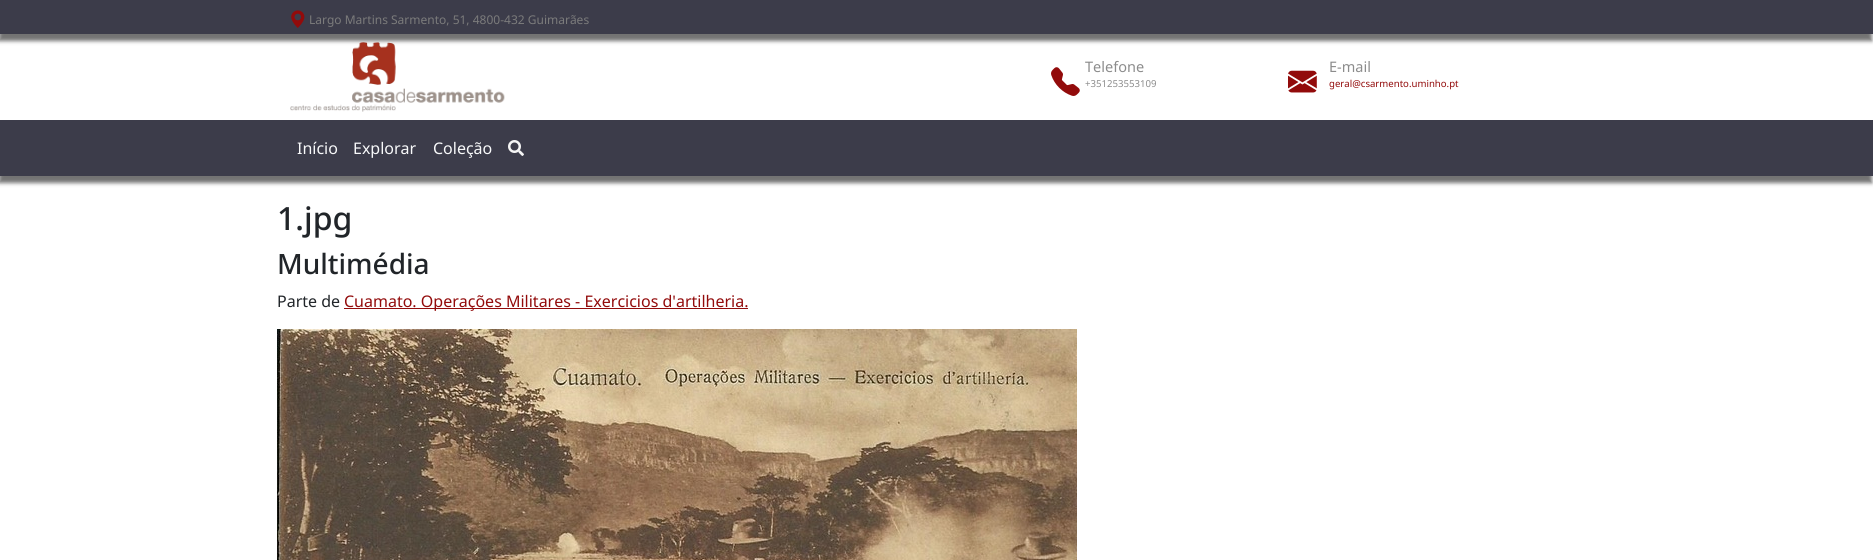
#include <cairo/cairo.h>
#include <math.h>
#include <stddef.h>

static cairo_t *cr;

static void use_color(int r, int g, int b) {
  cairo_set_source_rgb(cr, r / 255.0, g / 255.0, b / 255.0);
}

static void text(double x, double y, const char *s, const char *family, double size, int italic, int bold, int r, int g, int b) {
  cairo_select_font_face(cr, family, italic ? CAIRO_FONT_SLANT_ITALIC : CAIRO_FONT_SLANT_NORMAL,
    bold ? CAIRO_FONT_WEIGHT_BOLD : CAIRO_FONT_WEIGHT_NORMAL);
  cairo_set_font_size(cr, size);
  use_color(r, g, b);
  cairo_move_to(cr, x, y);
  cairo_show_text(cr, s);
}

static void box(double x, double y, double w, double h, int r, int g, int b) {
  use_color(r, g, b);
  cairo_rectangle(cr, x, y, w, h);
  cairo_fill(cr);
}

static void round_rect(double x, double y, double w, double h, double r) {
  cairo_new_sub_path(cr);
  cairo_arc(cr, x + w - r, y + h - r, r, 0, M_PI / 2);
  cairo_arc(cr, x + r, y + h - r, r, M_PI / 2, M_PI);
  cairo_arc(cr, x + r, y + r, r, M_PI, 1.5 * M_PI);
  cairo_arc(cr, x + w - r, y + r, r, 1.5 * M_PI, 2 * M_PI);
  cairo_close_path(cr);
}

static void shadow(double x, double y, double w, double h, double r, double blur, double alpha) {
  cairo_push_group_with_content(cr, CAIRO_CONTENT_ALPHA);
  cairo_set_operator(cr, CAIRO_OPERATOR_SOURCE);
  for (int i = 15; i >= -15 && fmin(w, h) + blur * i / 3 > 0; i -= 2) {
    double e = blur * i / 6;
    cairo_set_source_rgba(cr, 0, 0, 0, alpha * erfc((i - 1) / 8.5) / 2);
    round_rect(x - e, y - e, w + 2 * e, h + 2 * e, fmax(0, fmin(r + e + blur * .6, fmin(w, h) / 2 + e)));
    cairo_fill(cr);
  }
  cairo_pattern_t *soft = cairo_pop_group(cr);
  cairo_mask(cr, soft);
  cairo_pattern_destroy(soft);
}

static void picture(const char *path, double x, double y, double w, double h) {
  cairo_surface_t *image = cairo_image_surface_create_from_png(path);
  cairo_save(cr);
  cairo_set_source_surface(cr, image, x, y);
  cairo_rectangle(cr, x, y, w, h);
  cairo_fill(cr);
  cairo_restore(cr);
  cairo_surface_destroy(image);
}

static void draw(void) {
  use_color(255, 255, 255);
  cairo_paint(cr);
  use_color(115, 115, 115);
  shadow(-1, 7, 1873, 34, 0, 2, 1);
  box(0, 0, 1873, 34, 60, 60, 74);
  picture("img_01.png", 291, 10, 14, 18);
  picture("img_02.png", 290, 42, 215, 70);
  picture("img_03.png", 1051, 67, 29, 29);
  picture("img_04.png", 1288, 70, 29, 23);
  use_color(115, 115, 115);
  shadow(-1, 127, 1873, 56, 0, 2, 1);
  box(0, 120, 1873, 56, 60, 60, 74);
  picture("img_05.png", 508, 140, 16, 16);
  box(344, 308, 404, 1, 146, 11, 11);
  picture("img_06.png", 277, 329, 800, 231);
  text(309, 24, "Largo Martins Sarmento, 51, 4800-432 Guimarães", "Noto Sans", 12, 0, 0, 123, 123, 123);
  text(1085, 72, "Telefone", "Noto Sans", 14.5, 0, 0, 140, 140, 140);
  text(1085, 87, "+351253553109", "Noto Sans", 9.6, 0, 0, 140, 140, 140);
  text(1329, 72, "E-mail", "Noto Sans", 14.5, 0, 0, 140, 140, 140);
  text(1329, 87, "geral@csarmento.uminho.pt", "Noto Sans", 9.6, 0, 0, 146, 11, 11);
  text(297, 154, "Início", "Noto Sans", 16, 0, 0, 248, 249, 250);
  text(353, 154, "Explorar", "Noto Sans", 16, 0, 0, 248, 249, 250);
  text(433, 154, "Coleção", "Noto Sans", 16, 0, 0, 248, 249, 250);
  text(277, 230, "1.jpg", "Noto Sans Medium", 32, 0, 0, 33, 37, 41);
  text(277, 274, "Multimédia", "Noto Sans Medium", 28, 0, 0, 33, 37, 41);
  text(277, 307, "Parte de", "Noto Sans", 16, 0, 0, 33, 37, 41);
  text(344, 307, "Cuamato. Operações Militares - Exercicios d'artilheria.", "Noto Sans", 16, 0, 0, 146, 11, 11);
}

int main(void) {
  cairo_surface_t *surface = cairo_image_surface_create(CAIRO_FORMAT_RGB24, 1873, 560);
  cr = cairo_create(surface);
  cairo_font_options_t *options = cairo_font_options_create();
  cairo_font_options_set_hint_metrics(options, CAIRO_HINT_METRICS_OFF);
  cairo_font_options_set_hint_style(options, CAIRO_HINT_STYLE_NONE);
  cairo_set_font_options(cr, options);
  cairo_set_miter_limit(cr, 4);
  draw();
  cairo_surface_write_to_png(surface, "out.png");
  cairo_font_options_destroy(options);
  cairo_destroy(cr);
  cairo_surface_destroy(surface);
  return 0;
}
